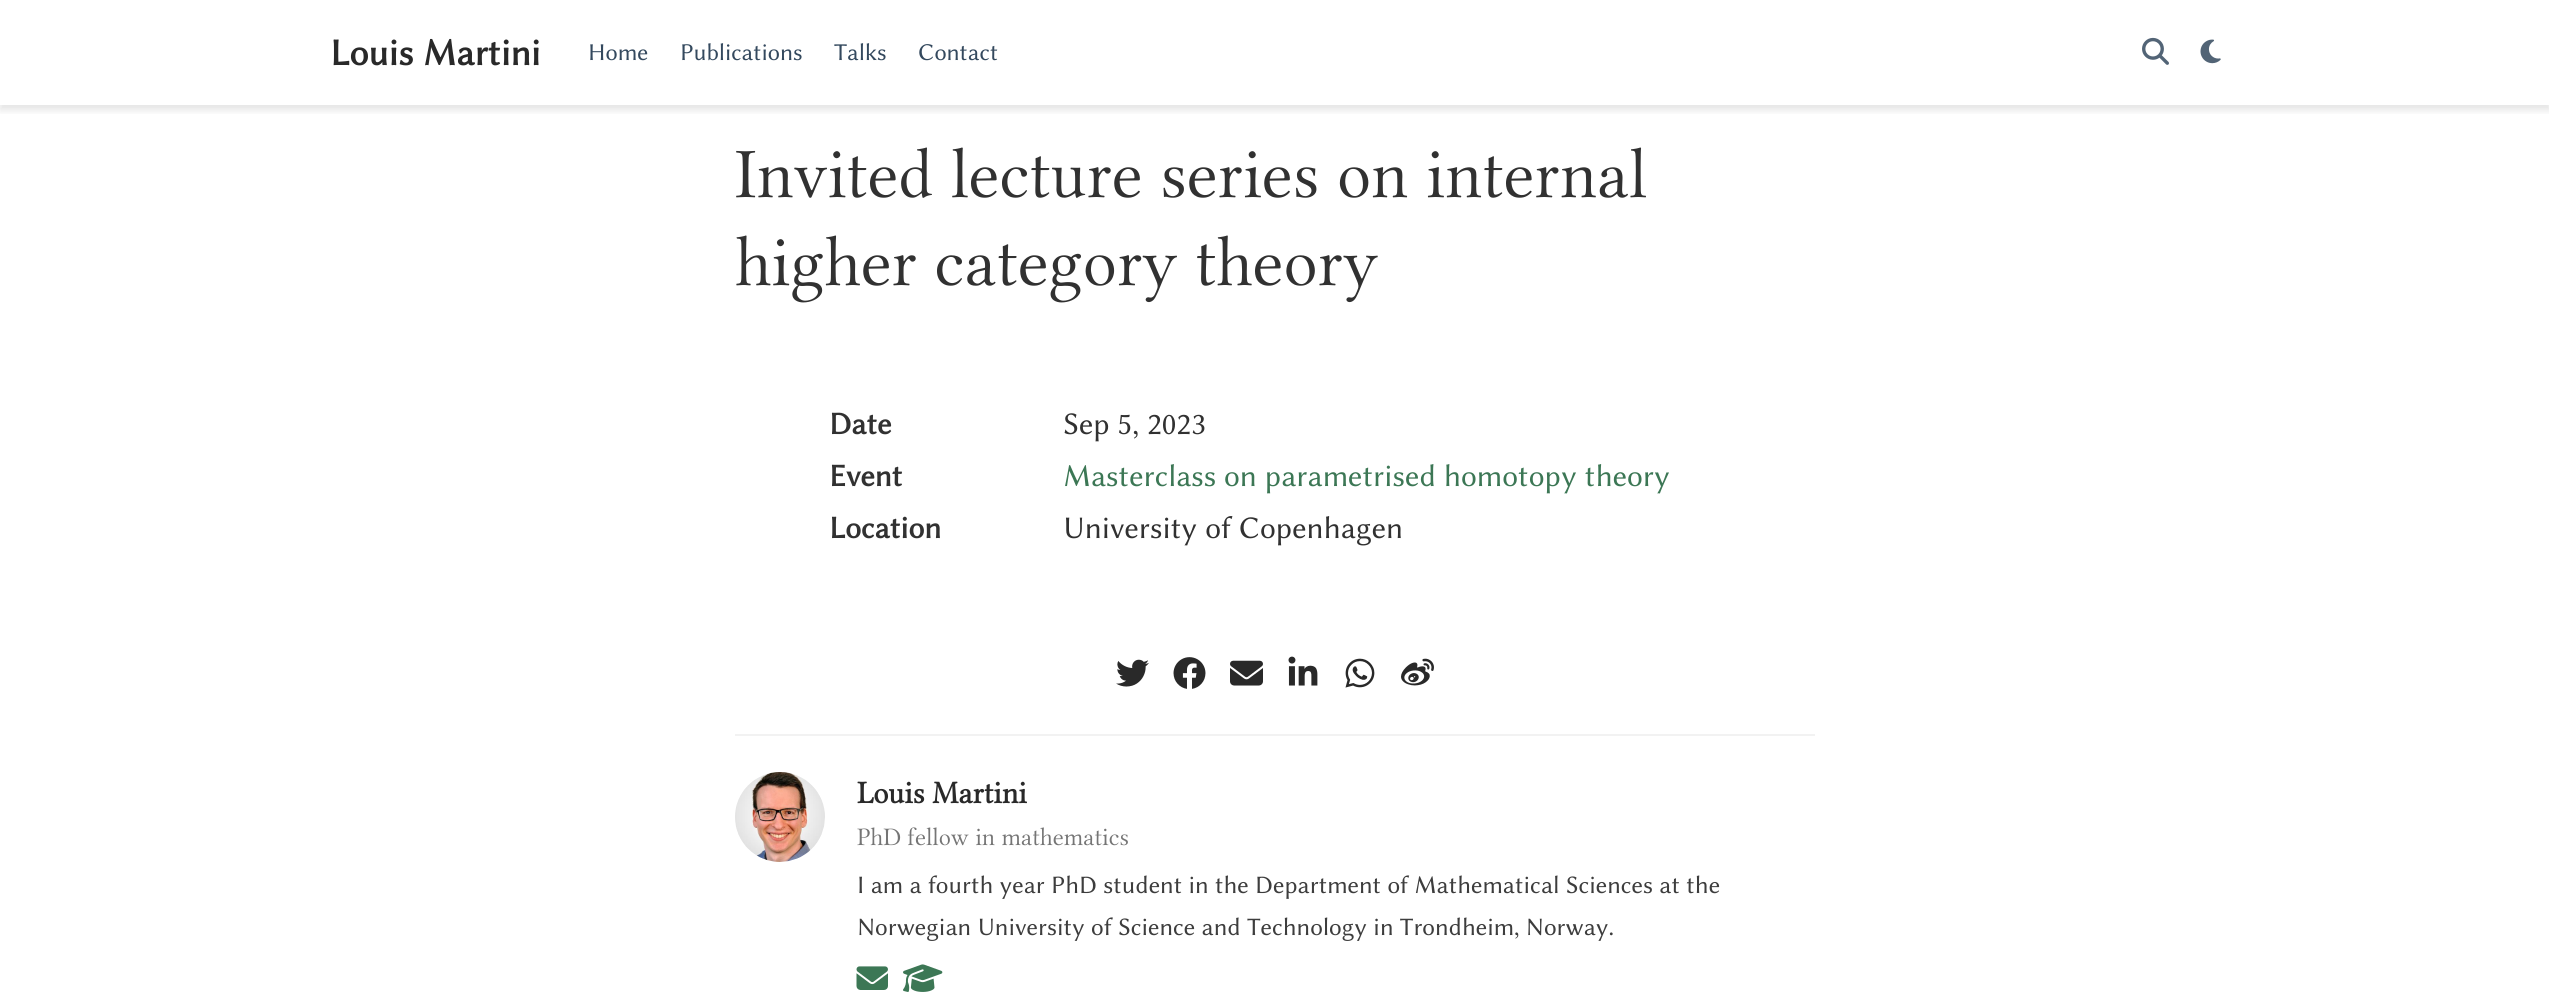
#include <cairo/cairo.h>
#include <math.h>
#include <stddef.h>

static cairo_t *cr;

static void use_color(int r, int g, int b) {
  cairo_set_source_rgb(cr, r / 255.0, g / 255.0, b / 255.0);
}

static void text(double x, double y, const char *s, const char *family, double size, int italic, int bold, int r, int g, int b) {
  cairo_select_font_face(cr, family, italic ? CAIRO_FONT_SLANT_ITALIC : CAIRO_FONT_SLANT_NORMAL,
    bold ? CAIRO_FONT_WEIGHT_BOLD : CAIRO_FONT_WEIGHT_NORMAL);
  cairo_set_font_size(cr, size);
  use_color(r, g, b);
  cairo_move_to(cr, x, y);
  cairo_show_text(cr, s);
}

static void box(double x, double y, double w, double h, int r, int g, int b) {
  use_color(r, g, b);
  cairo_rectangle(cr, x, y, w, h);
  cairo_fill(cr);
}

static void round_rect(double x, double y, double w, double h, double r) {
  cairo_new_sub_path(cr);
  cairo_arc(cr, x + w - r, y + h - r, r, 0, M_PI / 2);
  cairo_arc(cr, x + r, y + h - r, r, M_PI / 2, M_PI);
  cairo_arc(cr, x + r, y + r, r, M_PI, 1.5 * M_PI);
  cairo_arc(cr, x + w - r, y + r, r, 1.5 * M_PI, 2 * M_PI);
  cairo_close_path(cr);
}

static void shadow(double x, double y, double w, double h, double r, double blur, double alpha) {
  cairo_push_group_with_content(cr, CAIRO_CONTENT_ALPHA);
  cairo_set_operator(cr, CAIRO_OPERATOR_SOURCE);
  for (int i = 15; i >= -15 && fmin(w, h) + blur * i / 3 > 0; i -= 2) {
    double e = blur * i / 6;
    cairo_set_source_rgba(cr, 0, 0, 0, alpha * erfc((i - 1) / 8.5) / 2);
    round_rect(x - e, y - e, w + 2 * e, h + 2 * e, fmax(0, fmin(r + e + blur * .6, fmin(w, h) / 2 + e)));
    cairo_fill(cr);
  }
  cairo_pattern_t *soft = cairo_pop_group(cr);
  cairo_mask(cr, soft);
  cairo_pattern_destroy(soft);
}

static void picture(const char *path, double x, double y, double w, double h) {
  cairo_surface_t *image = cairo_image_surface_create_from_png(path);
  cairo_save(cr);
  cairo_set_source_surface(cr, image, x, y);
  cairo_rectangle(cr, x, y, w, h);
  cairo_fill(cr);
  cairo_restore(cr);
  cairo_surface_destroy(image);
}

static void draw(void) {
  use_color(255, 255, 255);
  cairo_paint(cr);
  cairo_save(cr);
  cairo_rectangle(cr, 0, 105, 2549, 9);
  cairo_clip(cr);
  use_color(0, 0, 0);
  shadow(0, 5, 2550, 105, 0, 4, 0.11);
  cairo_restore(cr);
  picture("img_01.png", 2142, 37, 27, 28);
  picture("img_02.png", 2200, 39, 21, 25);
  picture("img_03.png", 1116, 659, 33, 28);
  picture("img_04.png", 1173, 657, 33, 32);
  picture("img_05.png", 1230, 660, 33, 26);
  picture("img_06.png", 1288, 656, 30, 30);
  picture("img_07.png", 1345, 658, 30, 30);
  picture("img_08.png", 1401, 658, 33, 28);
  box(735, 734, 1080, 2, 242, 242, 242);
  picture("img_09.png", 735, 772, 90, 90);
  picture("img_10.png", 856, 966, 32, 24);
  picture("img_11.png", 903, 964, 40, 28);
  text(330, 65, "Louis Martini", "Libertinus Sans", 37.75, 0, 1, 41, 41, 41);
  text(588, 60, "Home", "Libertinus Sans", 24.25, 0, 0, 52, 73, 94);
  text(680, 60, "Publications", "Libertinus Sans", 24.25, 0, 0, 52, 73, 94);
  text(834, 60, "Talks", "Libertinus Sans", 24.25, 0, 0, 52, 73, 94);
  text(918, 60, "Contact", "Libertinus Sans", 24.25, 0, 0, 52, 73, 94);
  text(735, 197, "Invited lecture series on internal", "Libertinus Serif Display", 70.9, 0, 0, 49, 49, 49);
  text(735, 285, "higher category theory", "Libertinus Serif Display", 70.9, 0, 0, 49, 49, 49);
  text(829, 434, "Date", "Libertinus Sans", 31.5, 0, 1, 49, 49, 49);
  text(1063, 434, "Sep 5, 2023", "Libertinus Sans", 31.5, 0, 0, 49, 49, 49);
  text(829, 486, "Event", "Libertinus Sans", 31.5, 0, 1, 49, 49, 49);
  text(1063, 486, "Masterclass on parametrised homotopy theory", "Libertinus Sans", 31.5, 0, 0, 60, 119, 85);
  text(829, 538, "Location", "Libertinus Sans", 31.5, 0, 1, 49, 49, 49);
  text(1063, 538, "University of Copenhagen", "Libertinus Sans", 31.5, 0, 0, 49, 49, 49);
  text(857, 803, "Louis Martini", "Libertinus Serif Display", 31.5, 0, 1, 41, 41, 41);
  text(857, 845, "PhD fellow in mathematics", "Libertinus Serif Display", 25.2, 0, 0, 117, 117, 117);
  text(857, 893, "I am a fourth year PhD student in the Department of Mathematical Sciences at the", "Libertinus Sans", 25.2, 0, 0, 61, 61, 61);
  text(857, 935, "Norwegian University of Science and Technology in Trondheim, Norway.", "Libertinus Sans", 25.2, 0, 0, 61, 61, 61);
}

int main(void) {
  cairo_surface_t *surface = cairo_image_surface_create(CAIRO_FORMAT_RGB24, 2549, 1004);
  cr = cairo_create(surface);
  cairo_font_options_t *options = cairo_font_options_create();
  cairo_font_options_set_hint_metrics(options, CAIRO_HINT_METRICS_OFF);
  cairo_font_options_set_hint_style(options, CAIRO_HINT_STYLE_NONE);
  cairo_set_font_options(cr, options);
  cairo_set_miter_limit(cr, 4);
  draw();
  cairo_surface_write_to_png(surface, "out.png");
  cairo_font_options_destroy(options);
  cairo_destroy(cr);
  cairo_surface_destroy(surface);
  return 0;
}
